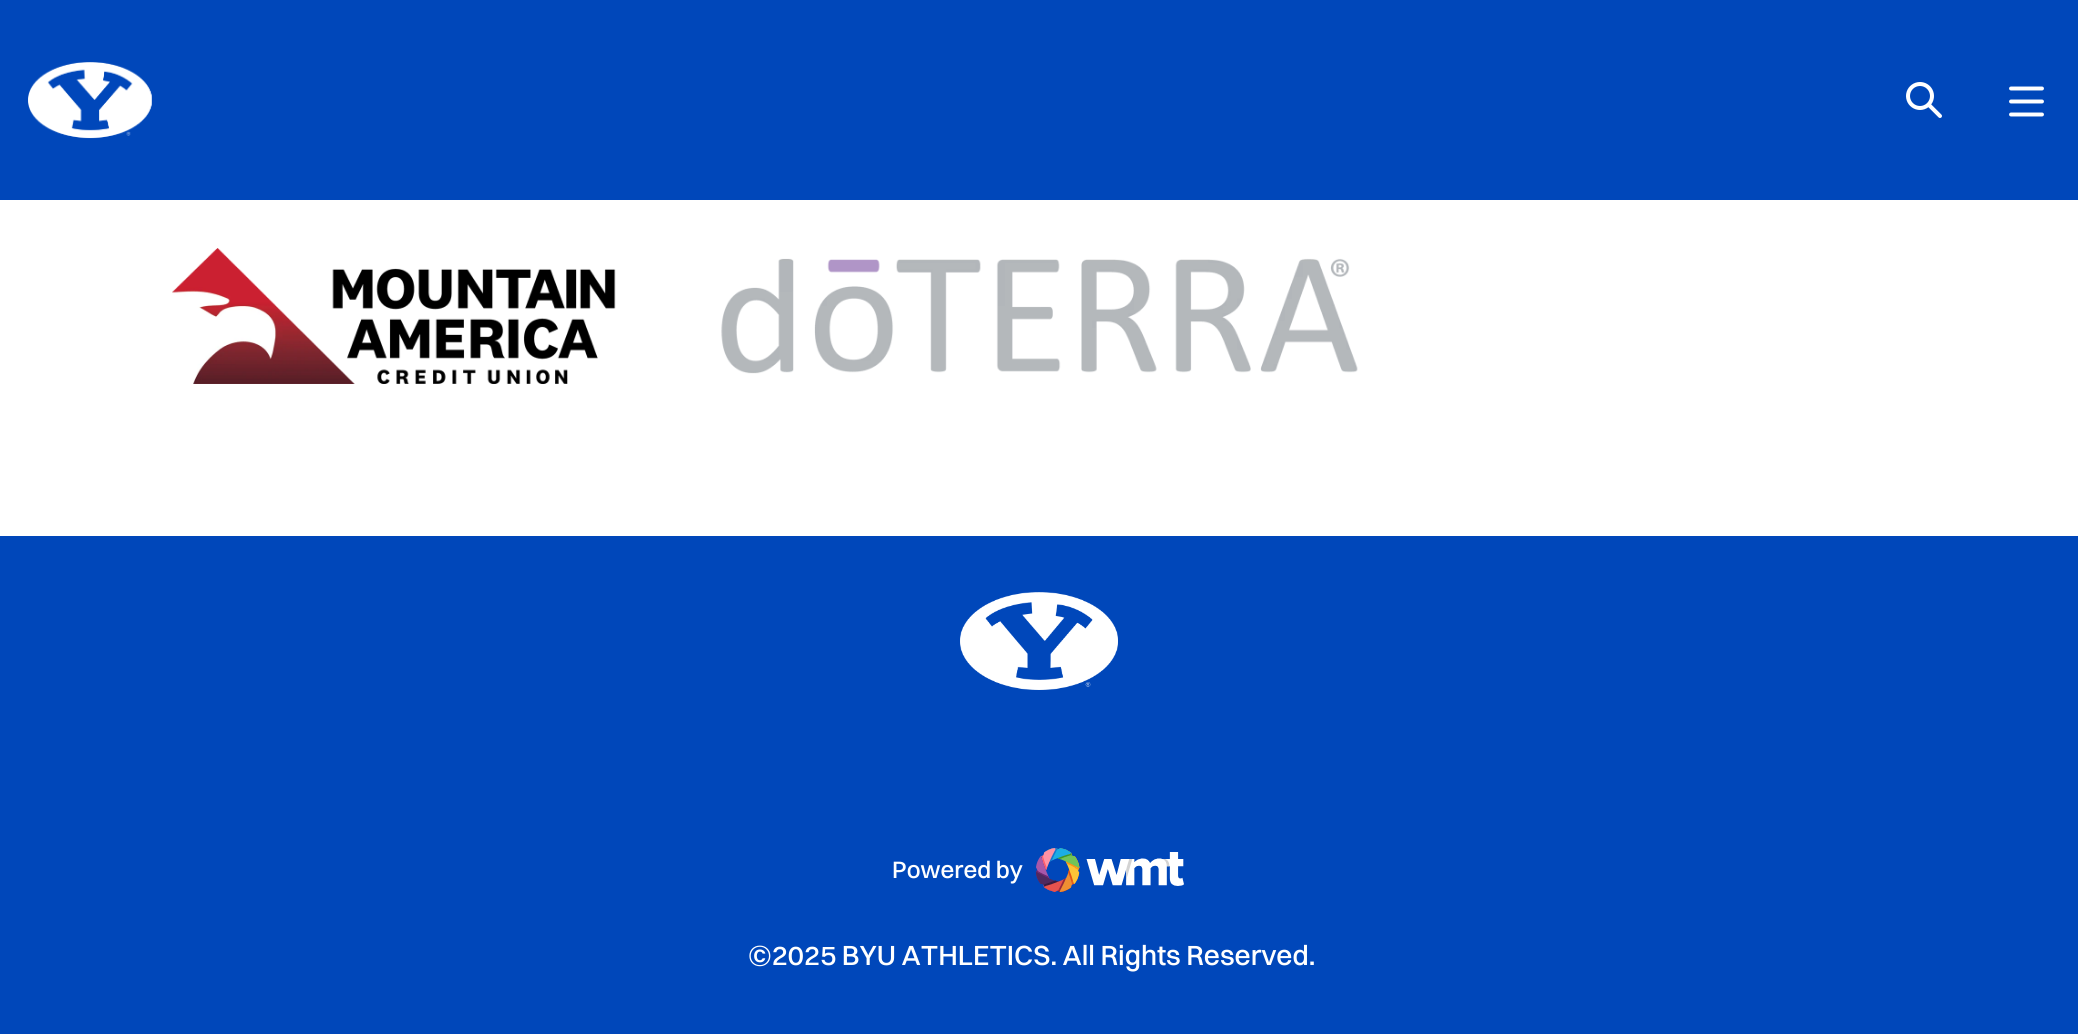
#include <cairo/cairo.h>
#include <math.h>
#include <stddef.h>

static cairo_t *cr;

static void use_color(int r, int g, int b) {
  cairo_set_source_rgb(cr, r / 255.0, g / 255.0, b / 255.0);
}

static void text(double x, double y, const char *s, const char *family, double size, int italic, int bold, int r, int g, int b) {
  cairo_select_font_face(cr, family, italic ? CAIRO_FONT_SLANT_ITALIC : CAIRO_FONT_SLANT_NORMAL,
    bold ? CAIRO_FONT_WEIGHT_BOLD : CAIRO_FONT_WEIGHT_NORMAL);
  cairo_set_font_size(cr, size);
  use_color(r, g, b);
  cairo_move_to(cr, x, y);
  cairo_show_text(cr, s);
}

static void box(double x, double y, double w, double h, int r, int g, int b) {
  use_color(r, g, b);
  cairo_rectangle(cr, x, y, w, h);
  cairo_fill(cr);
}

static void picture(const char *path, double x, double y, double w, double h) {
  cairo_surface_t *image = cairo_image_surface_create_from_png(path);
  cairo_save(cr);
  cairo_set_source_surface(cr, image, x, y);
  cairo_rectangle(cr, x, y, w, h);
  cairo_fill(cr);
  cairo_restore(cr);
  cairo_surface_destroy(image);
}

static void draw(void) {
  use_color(255, 255, 255);
  cairo_paint(cr);
  box(0, 0, 2078, 200, 0, 71, 186);
  picture("img_01.png", 28, 62, 124, 77);
  picture("img_02.png", 1906, 82, 36, 36);
  cairo_new_path(cr);
  cairo_move_to(cr, 2011, 88.5);
  cairo_line_to(cr, 2042, 88.5);
  cairo_move_to(cr, 2011, 101.5);
  cairo_line_to(cr, 2042, 101.5);
  cairo_move_to(cr, 2042, 114.5);
  cairo_line_to(cr, 2011, 114.5);
  use_color(255, 255, 255);
  cairo_set_line_width(cr, 3.9);
  cairo_set_line_cap(cr, CAIRO_LINE_CAP_ROUND);
  cairo_stroke(cr);
  picture("img_03.png", 172, 248, 444, 136);
  picture("img_04.png", 721, 258, 637, 116);
  box(0, 536, 2078, 498, 0, 71, 186);
  picture("img_05.png", 960, 592, 158, 98);
  picture("img_06.png", 1036, 848, 148, 44);
  text(892, 878, "Powered by", "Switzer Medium", 24, 0, 0, 255, 255, 255);
  text(748, 965, "©2025 BYU ATHLETICS. All Rights Reserved.", "Switzer Medium", 28, 0, 0, 255, 255, 255);
}

int main(void) {
  cairo_surface_t *surface = cairo_image_surface_create(CAIRO_FORMAT_RGB24, 2078, 1034);
  cr = cairo_create(surface);
  cairo_font_options_t *options = cairo_font_options_create();
  cairo_font_options_set_hint_metrics(options, CAIRO_HINT_METRICS_OFF);
  cairo_font_options_set_hint_style(options, CAIRO_HINT_STYLE_NONE);
  cairo_set_font_options(cr, options);
  cairo_set_miter_limit(cr, 4);
  draw();
  cairo_surface_write_to_png(surface, "out.png");
  cairo_font_options_destroy(options);
  cairo_destroy(cr);
  cairo_surface_destroy(surface);
  return 0;
}
